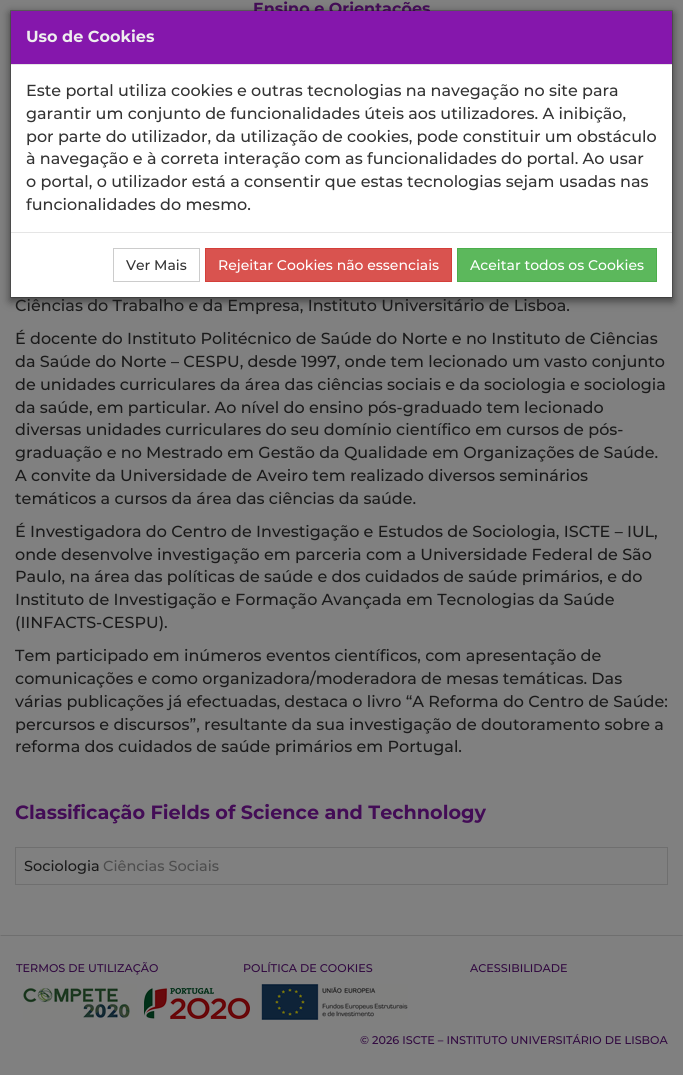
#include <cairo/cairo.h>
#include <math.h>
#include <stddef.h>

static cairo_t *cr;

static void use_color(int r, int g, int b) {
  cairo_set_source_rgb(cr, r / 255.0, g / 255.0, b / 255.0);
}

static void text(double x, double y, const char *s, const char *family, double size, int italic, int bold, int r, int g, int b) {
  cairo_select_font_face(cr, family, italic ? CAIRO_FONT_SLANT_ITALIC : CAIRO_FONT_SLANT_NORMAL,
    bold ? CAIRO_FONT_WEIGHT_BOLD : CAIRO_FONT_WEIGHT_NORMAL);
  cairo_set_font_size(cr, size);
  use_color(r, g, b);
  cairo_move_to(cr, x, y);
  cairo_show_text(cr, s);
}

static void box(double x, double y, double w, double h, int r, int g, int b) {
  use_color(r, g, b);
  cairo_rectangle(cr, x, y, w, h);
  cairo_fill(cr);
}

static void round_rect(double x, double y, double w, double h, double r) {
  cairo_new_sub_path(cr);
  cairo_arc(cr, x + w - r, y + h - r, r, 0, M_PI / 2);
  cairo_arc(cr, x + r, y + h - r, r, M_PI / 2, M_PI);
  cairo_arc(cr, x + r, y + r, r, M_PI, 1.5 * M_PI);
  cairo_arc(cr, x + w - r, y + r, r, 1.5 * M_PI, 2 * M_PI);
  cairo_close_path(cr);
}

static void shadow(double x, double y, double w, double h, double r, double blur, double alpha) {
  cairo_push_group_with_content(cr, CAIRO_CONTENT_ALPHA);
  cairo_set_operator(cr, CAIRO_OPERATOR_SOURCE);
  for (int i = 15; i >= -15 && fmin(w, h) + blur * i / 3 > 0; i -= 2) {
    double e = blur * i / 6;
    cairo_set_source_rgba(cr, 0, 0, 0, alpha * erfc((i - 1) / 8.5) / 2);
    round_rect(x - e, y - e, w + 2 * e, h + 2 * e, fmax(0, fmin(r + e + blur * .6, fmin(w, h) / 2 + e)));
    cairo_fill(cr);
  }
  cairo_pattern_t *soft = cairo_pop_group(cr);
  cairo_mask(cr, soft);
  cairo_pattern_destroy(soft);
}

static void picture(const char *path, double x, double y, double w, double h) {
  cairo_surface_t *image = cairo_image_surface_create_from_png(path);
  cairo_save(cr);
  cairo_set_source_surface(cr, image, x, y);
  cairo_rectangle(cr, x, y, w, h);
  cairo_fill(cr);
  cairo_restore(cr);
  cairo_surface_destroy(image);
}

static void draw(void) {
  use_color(128, 128, 128);
  cairo_paint(cr);
  box(15, 847, 653, 1, 111, 111, 111);
  box(667, 847, 1, 38, 111, 111, 111);
  box(15, 884, 653, 1, 111, 111, 111);
  box(15, 847, 1, 38, 111, 111, 111);
  use_color(0, 0, 0);
  shadow(10, 13, 663, 288, 0, 4.5, 0.5);
  box(11, 65, 661, 232, 255, 255, 255);
  use_color(111, 111, 111);
  cairo_new_path(cr);
  cairo_move_to(cr, 0, 935);
  cairo_line_to(cr, 683, 935);
  cairo_line_to(cr, 682, 936);
  cairo_line_to(cr, 1, 936);
  cairo_close_path(cr);
  cairo_fill(cr);
  picture("img_01.png", 23, 984, 385, 36);
  text(253, 14, "Ensino e Orientações", "Montserrat", 16, 0, 1, 67, 12, 86);
  text(15, 311, "Ciências do Trabalho e da Empresa, Instituto Universitário de Lisboa.", "Montserrat Medium", 16, 0, 0, 26, 26, 26);
  text(15, 344, "É docente do Instituto Politécnico de Saúde do Norte e no Instituto de Ciências", "Montserrat Medium", 16, 0, 0, 26, 26, 26);
  text(15, 367, "da Saúde do Norte – CESPU, desde 1997, onde tem lecionado um vasto conjunto", "Montserrat Medium", 16, 0, 0, 26, 26, 26);
  text(15, 390, "de unidades curriculares da área das ciências sociais e da sociologia e sociologia", "Montserrat Medium", 16, 0, 0, 26, 26, 26);
  text(15, 413, "da saúde, em particular. Ao nível do ensino pós-graduado tem lecionado", "Montserrat Medium", 16, 0, 0, 26, 26, 26);
  text(15, 435, "diversas unidades curriculares do seu domínio científico em cursos de pós-", "Montserrat Medium", 16, 0, 0, 26, 26, 26);
  text(15, 458, "graduação e no Mestrado em Gestão da Qualidade em Organizações de Saúde.", "Montserrat Medium", 16, 0, 0, 26, 26, 26);
  text(15, 481, "A convite da Universidade de Aveiro tem realizado diversos seminários", "Montserrat Medium", 16, 0, 0, 26, 26, 26);
  text(15, 504, "temáticos a cursos da área das ciências da saúde.", "Montserrat Medium", 16, 0, 0, 26, 26, 26);
  text(15, 537, "É Investigadora do Centro de Investigação e Estudos de Sociologia, ISCTE – IUL,", "Montserrat Medium", 16, 0, 0, 26, 26, 26);
  text(15, 560, "onde desenvolve investigação em parceria com a Universidade Federal de São", "Montserrat Medium", 16, 0, 0, 26, 26, 26);
  text(15, 582, "Paulo, na área das políticas de saúde e dos cuidados de saúde primários, e do", "Montserrat Medium", 16, 0, 0, 26, 26, 26);
  text(15, 605, "Instituto de Investigação e Formação Avançada em Tecnologias da Saúde", "Montserrat Medium", 16, 0, 0, 26, 26, 26);
  text(15, 628, "(IINFACTS-CESPU).", "Montserrat Medium", 16, 0, 0, 26, 26, 26);
  text(15, 661, "Tem participado em inúmeros eventos científicos, com apresentação de", "Montserrat Medium", 16, 0, 0, 26, 26, 26);
  text(15, 684, "comunicações e como organizadora/moderadora de mesas temáticas. Das", "Montserrat Medium", 16, 0, 0, 26, 26, 26);
  text(15, 707, "várias publicações já efectuadas, destaca o livro “A Reforma do Centro de Saúde:", "Montserrat Medium", 16, 0, 0, 26, 26, 26);
  text(15, 730, "percursos e discursos”, resultante da sua investigação de doutoramento sobre a", "Montserrat Medium", 16, 0, 0, 26, 26, 26);
  text(15, 752, "reforma dos cuidados de saúde primários em Portugal.", "Montserrat Medium", 16, 0, 0, 26, 26, 26);
  text(15, 819, "Classificação Fields of Science and Technology", "Montserrat", 19.2, 0, 1, 67, 12, 86);
  text(24, 871, "Sociologia", "Montserrat Medium", 14.5, 0, 0, 26, 26, 26);
  text(103, 871, "Ciências Sociais", "Montserrat Medium", 14.5, 0, 0, 77, 77, 77);
  cairo_rectangle(cr, 10.5, 10.5, 662, 287);
  cairo_set_source_rgba(cr, 0, 0, 0, 0.2);
  cairo_set_line_width(cr, 1);
  cairo_stroke(cr);
  box(11, 11, 661, 53, 133, 23, 172);
  box(11, 64, 661, 1, 229, 229, 229);
  text(26, 42, "Uso de Cookies", "Montserrat", 16, 0, 1, 238, 238, 238);
  text(26, 96, "Este portal utiliza cookies e outras tecnologias na navegação no site para", "Montserrat Medium", 16, 0, 0, 51, 51, 51);
  text(26, 119, "garantir um conjunto de funcionalidades úteis aos utilizadores. A inibição,", "Montserrat Medium", 16, 0, 0, 51, 51, 51);
  text(26, 142, "por parte do utilizador, da utilização de cookies, pode constituir um obstáculo", "Montserrat Medium", 16, 0, 0, 51, 51, 51);
  text(26, 164, "à navegação e à correta interação com as funcionalidades do portal. Ao usar", "Montserrat Medium", 16, 0, 0, 51, 51, 51);
  text(26, 187, "o portal, o utilizador está a consentir que estas tecnologias sejam usadas nas", "Montserrat Medium", 16, 0, 0, 51, 51, 51);
  text(26, 210, "funcionalidades do mesmo.", "Montserrat Medium", 16, 0, 0, 51, 51, 51);
  box(11, 232, 661, 1, 229, 229, 229);
  cairo_rectangle(cr, 113.5, 248.5, 86, 33);
  use_color(204, 204, 204);
  cairo_stroke(cr);
  text(126, 270, "Ver Mais", "Montserrat Medium", 14, 0, 0, 51, 51, 51);
  use_color(217, 83, 79);
  cairo_rectangle(cr, 205.5, 248.5, 246, 33);
  cairo_fill_preserve(cr);
  use_color(212, 63, 58);
  cairo_stroke(cr);
  text(218, 270, "Rejeitar Cookies não essenciais", "Montserrat Medium", 14, 0, 0, 255, 255, 255);
  use_color(92, 184, 92);
  cairo_rectangle(cr, 457.5, 248.5, 199, 33);
  cairo_fill_preserve(cr);
  use_color(76, 174, 76);
  cairo_stroke(cr);
  text(470, 270, "Aceitar todos os Cookies", "Montserrat Medium", 14, 0, 0, 255, 255, 255);
  text(16, 972, "TERMOS DE UTILIZAÇÃO", "Montserrat Medium", 11.2, 0, 0, 49, 9, 64);
  text(243, 972, "POLÍTICA DE COOKIES", "Montserrat Medium", 11.2, 0, 0, 49, 9, 64);
  text(470, 972, "ACESSIBILIDADE", "Montserrat Medium", 11.2, 0, 0, 49, 9, 64);
  text(360, 1044, "© 2026 ISCTE – INSTITUTO UNIVERSITÁRIO DE LISBOA", "Montserrat Medium", 11.2, 0, 0, 49, 9, 64);
}

int main(void) {
  cairo_surface_t *surface = cairo_image_surface_create(CAIRO_FORMAT_RGB24, 683, 1075);
  cr = cairo_create(surface);
  cairo_font_options_t *options = cairo_font_options_create();
  cairo_font_options_set_hint_metrics(options, CAIRO_HINT_METRICS_OFF);
  cairo_font_options_set_hint_style(options, CAIRO_HINT_STYLE_NONE);
  cairo_set_font_options(cr, options);
  cairo_set_miter_limit(cr, 4);
  draw();
  cairo_surface_write_to_png(surface, "out.png");
  cairo_font_options_destroy(options);
  cairo_destroy(cr);
  cairo_surface_destroy(surface);
  return 0;
}
